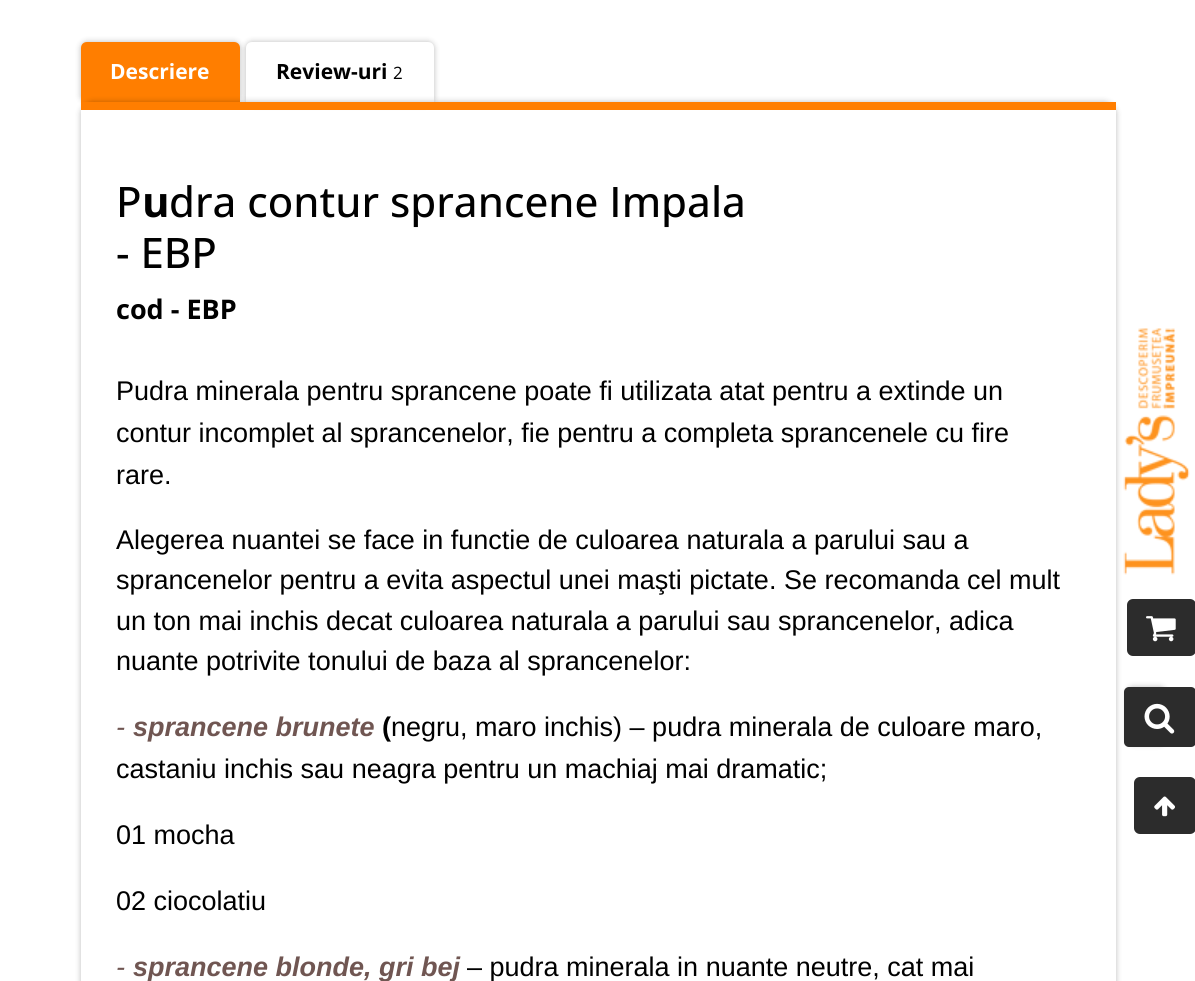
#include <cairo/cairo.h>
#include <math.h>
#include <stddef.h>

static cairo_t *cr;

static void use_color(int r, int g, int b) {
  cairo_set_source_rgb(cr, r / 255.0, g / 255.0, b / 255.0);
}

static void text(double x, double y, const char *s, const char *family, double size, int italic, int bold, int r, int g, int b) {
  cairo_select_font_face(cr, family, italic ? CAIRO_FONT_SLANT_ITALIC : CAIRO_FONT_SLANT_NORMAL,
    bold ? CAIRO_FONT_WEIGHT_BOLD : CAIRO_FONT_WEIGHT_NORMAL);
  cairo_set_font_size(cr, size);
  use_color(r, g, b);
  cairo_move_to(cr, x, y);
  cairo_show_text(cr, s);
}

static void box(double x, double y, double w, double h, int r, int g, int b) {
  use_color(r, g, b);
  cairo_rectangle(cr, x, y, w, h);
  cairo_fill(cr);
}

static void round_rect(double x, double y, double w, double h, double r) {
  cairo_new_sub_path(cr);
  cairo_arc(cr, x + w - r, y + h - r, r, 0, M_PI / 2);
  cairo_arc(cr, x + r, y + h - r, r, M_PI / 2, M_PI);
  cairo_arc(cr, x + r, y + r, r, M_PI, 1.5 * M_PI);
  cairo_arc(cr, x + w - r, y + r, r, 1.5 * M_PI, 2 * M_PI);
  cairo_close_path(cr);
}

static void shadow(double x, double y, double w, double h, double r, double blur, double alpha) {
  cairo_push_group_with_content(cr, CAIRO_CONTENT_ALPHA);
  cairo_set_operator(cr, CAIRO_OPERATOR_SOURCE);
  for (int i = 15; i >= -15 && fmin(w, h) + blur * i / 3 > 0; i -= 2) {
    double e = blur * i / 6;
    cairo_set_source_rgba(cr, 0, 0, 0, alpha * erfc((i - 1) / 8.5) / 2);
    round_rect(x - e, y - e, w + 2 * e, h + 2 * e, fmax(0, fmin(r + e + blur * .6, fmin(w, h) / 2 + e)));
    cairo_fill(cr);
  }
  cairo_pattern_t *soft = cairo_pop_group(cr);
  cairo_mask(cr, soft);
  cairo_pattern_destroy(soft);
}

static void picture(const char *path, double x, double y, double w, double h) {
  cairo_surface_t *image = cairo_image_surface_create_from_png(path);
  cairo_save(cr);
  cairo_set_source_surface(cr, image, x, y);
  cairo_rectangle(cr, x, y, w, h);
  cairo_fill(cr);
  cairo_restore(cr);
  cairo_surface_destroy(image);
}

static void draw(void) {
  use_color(255, 255, 255);
  cairo_paint(cr);
  use_color(0, 0, 0);
  shadow(81, 42, 159, 60, 6, 3, 0.27);
  use_color(255, 126, 0);
  cairo_new_path(cr);
  cairo_move_to(cr, 87, 42);
  cairo_line_to(cr, 234, 42);
  cairo_curve_to(cr, 237.5, 42, 240, 44.5, 240, 48);
  cairo_line_to(cr, 240, 102);
  cairo_line_to(cr, 81, 102);
  cairo_line_to(cr, 81, 48);
  cairo_curve_to(cr, 81, 44.5, 83.5, 42, 87, 42);
  cairo_close_path(cr);
  cairo_fill(cr);
  use_color(0, 0, 0);
  shadow(246, 42, 188, 62, 6, 3, 0.27);
  use_color(255, 255, 255);
  cairo_new_path(cr);
  cairo_move_to(cr, 252, 42);
  cairo_line_to(cr, 428, 42);
  cairo_curve_to(cr, 431.5, 42, 434, 44.5, 434, 48);
  cairo_line_to(cr, 434, 104);
  cairo_line_to(cr, 246, 104);
  cairo_line_to(cr, 246, 48);
  cairo_curve_to(cr, 246, 44.5, 248.5, 42, 252, 42);
  cairo_close_path(cr);
  cairo_fill(cr);
  cairo_save(cr);
  cairo_set_fill_rule(cr, CAIRO_FILL_RULE_EVEN_ODD);
  cairo_new_path(cr);
  cairo_move_to(cr, 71, 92);
  cairo_line_to(cr, 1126, 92);
  cairo_line_to(cr, 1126, 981);
  cairo_line_to(cr, 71, 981);
  cairo_close_path(cr);
  cairo_move_to(cr, 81, 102);
  cairo_line_to(cr, 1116, 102);
  cairo_line_to(cr, 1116, 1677);
  cairo_curve_to(cr, 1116, 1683.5, 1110.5, 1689, 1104, 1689);
  cairo_line_to(cr, 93, 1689);
  cairo_curve_to(cr, 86.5, 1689, 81, 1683.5, 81, 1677);
  cairo_close_path(cr);
  cairo_clip(cr);
  use_color(0, 0, 0);
  shadow(81, 102, 1035, 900, 12, 3, 0.27);
  cairo_restore(cr);
  box(81, 102, 1035, 8, 255, 126, 0);
  picture("img_01.png", 1123, 328, 67, 247);
  use_color(44, 44, 44);
  round_rect(1127, 599, 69, 57, 6);
  cairo_fill(cr);
  picture("img_02.png", 1146, 616, 30, 26);
  use_color(0, 0, 0);
  shadow(1127, 687, 39, 57, 6, 3, 0.27);
  use_color(44, 44, 44);
  round_rect(1124, 687, 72, 60, 5);
  cairo_fill(cr);
  picture("img_03.png", 1144, 703, 31, 31);
  round_rect(1134, 777, 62, 57, 6);
  cairo_fill(cr);
  picture("img_04.png", 1154, 796, 21, 21);
  text(110, 79, "Descriere", "Open Sans", 21, 0, 1, 255, 255, 255);
  text(276, 79, "Review-uri", "Open Sans", 21, 0, 1, 0, 0, 0);
  text(393, 79, "2", "Open Sans", 17, 0, 0, 0, 0, 0);
  text(116, 217, "P", "Open Sans Medium", 42, 0, 0, 0, 0, 0);
  text(142, 217, "u", "Open Sans", 42, 0, 1, 0, 0, 0);
  text(169, 217, "dra contur sprancene Impala", "Open Sans Medium", 42, 0, 0, 0, 0, 0);
  text(116, 268, "- EBP", "Open Sans Medium", 42, 0, 0, 0, 0, 0);
  text(116, 319, "cod - EBP", "Open Sans", 27, 0, 1, 0, 0, 0);
  text(116, 400, "Pudra minerala pentru sprancene poate fi utilizata atat pentru a extinde un", "Liberation Sans", 27, 0, 0, 0, 0, 0);
  text(116, 442, "contur incomplet al sprancenelor, fie pentru a completa sprancenele cu fire", "Liberation Sans", 27, 0, 0, 0, 0, 0);
  text(116, 484, "rare.", "Liberation Sans", 27, 0, 0, 0, 0, 0);
  text(116, 549, "Alegerea nuantei se face in functie de culoarea naturala a parului sau a", "Liberation Sans", 27, 0, 0, 0, 0, 0);
  text(116, 589, "sprancenelor pentru a evita aspectul unei maşti pictate. Se recomanda cel mult", "Liberation Sans", 27, 0, 0, 0, 0, 0);
  text(116, 630, "un ton mai inchis decat culoarea naturala a parului sau sprancenelor, adica", "Liberation Sans", 27, 0, 0, 0, 0, 0);
  text(116, 670, "nuante potrivite tonului de baza al sprancenelor:", "Liberation Sans", 27, 0, 0, 0, 0, 0);
  text(116, 736, "-", "Liberation Sans", 27, 1, 0, 112, 86, 82);
  text(133, 736, "sprancene brunete", "Liberation Sans", 27, 1, 1, 112, 86, 82);
  text(382, 736, "(", "Liberation Sans", 27, 0, 1, 0, 0, 0);
  text(391, 736, "negru, maro inchis) – pudra minerala de culoare maro,", "Liberation Sans", 27, 0, 0, 0, 0, 0);
  text(116, 778, "castaniu inchis sau neagra pentru un machiaj mai dramatic;", "Liberation Sans", 27, 0, 0, 0, 0, 0);
  text(116, 844, "01 mocha", "Liberation Sans", 27, 0, 0, 0, 0, 0);
  text(116, 910, "02 ciocolatiu", "Liberation Sans", 27, 0, 0, 0, 0, 0);
  text(116, 976, "-", "Liberation Sans", 27, 1, 0, 112, 86, 82);
  text(133, 976, "sprancene blonde, gri bej", "Liberation Sans", 27, 1, 1, 112, 86, 82);
  text(467, 976, "– pudra minerala in nuante neutre, cat mai", "Liberation Sans", 27, 0, 0, 0, 0, 0);
}

int main(void) {
  cairo_surface_t *surface = cairo_image_surface_create(CAIRO_FORMAT_RGB24, 1195, 981);
  cr = cairo_create(surface);
  cairo_font_options_t *options = cairo_font_options_create();
  cairo_font_options_set_hint_metrics(options, CAIRO_HINT_METRICS_OFF);
  cairo_font_options_set_hint_style(options, CAIRO_HINT_STYLE_NONE);
  cairo_set_font_options(cr, options);
  cairo_set_miter_limit(cr, 4);
  draw();
  cairo_surface_write_to_png(surface, "out.png");
  cairo_font_options_destroy(options);
  cairo_destroy(cr);
  cairo_surface_destroy(surface);
  return 0;
}
